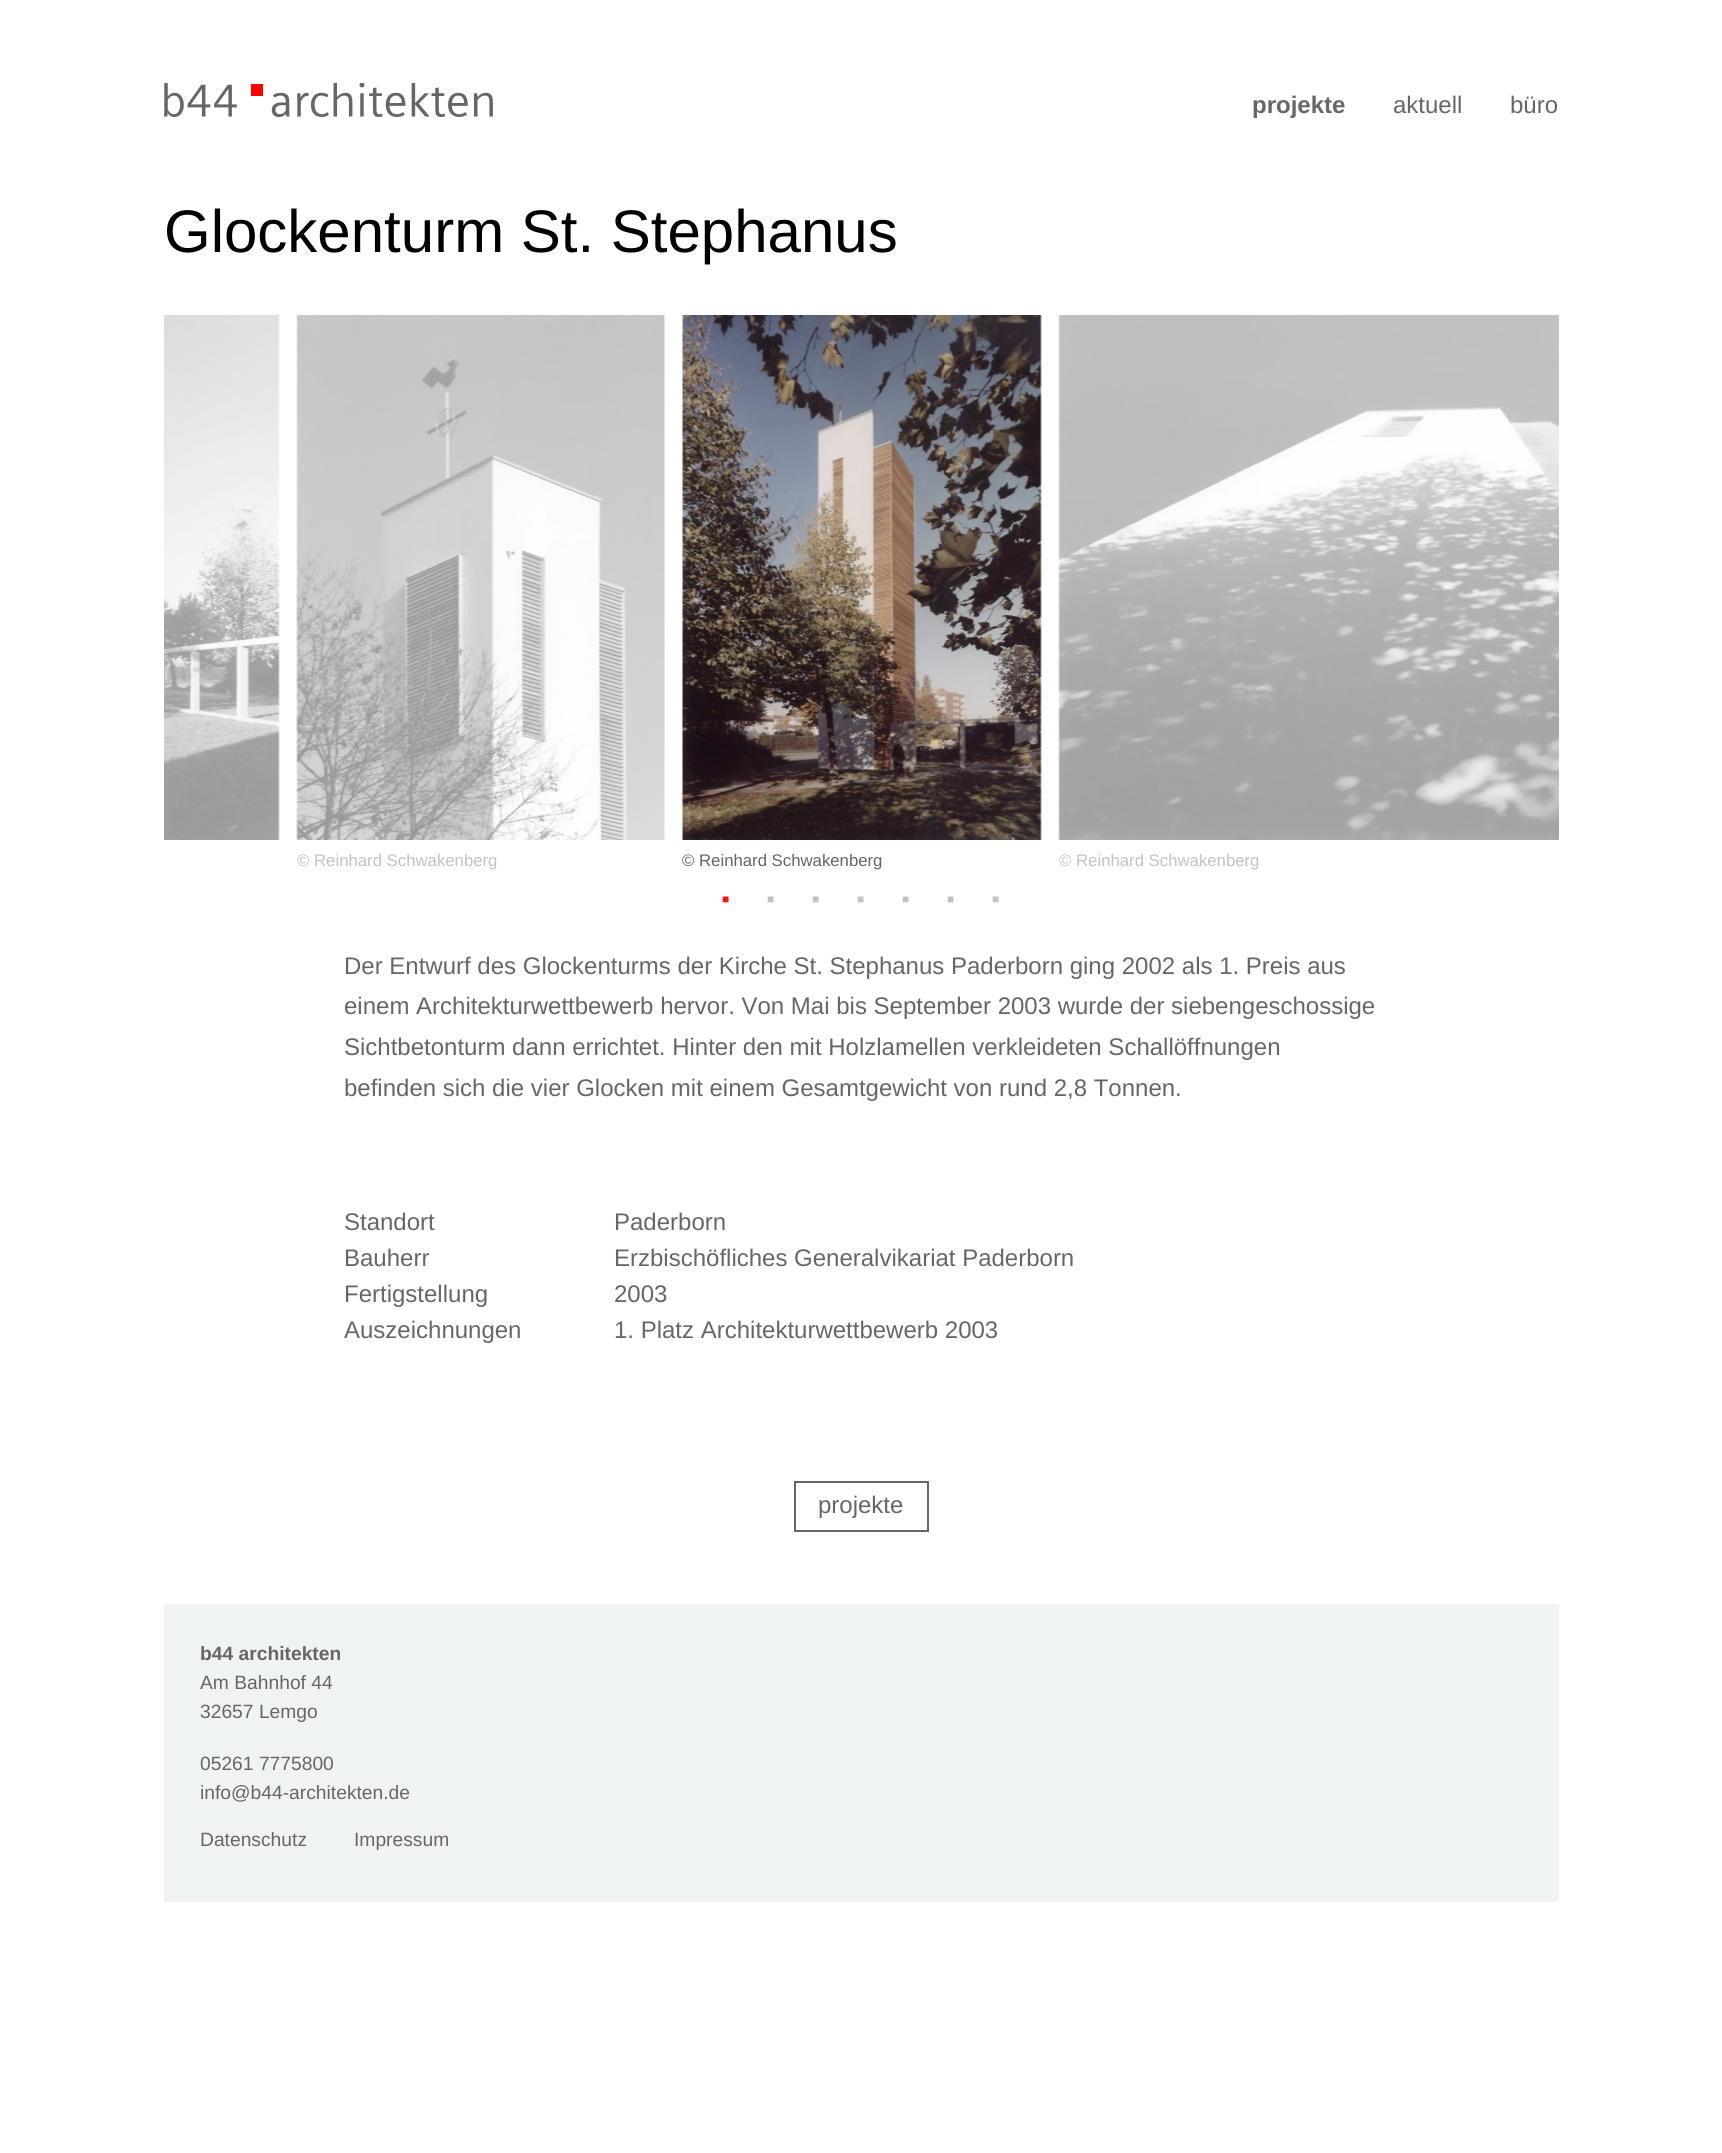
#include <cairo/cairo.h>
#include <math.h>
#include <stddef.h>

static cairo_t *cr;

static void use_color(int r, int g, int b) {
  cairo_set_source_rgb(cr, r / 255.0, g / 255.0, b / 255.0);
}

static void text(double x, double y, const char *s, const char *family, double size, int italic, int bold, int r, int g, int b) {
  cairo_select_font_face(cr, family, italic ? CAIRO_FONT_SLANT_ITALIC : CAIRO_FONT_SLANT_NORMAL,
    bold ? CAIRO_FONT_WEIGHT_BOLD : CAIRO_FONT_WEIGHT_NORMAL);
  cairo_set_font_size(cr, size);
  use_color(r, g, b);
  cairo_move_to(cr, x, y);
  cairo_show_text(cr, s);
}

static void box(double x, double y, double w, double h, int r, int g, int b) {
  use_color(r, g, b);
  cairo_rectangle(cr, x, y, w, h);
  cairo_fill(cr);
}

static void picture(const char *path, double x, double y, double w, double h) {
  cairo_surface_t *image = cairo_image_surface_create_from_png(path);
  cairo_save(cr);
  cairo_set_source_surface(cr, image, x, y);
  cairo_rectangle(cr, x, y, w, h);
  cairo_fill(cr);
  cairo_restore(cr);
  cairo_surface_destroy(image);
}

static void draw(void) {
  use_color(255, 255, 255);
  cairo_paint(cr);
  picture("img_01.png", 164, 83, 329, 34);
  picture("img_02.png", 164, 315, 116, 525);
  picture("img_03.png", 296, 315, 369, 525);
  picture("img_04.png", 682, 315, 360, 525);
  picture("img_05.png", 1058, 315, 501, 525);
  cairo_rectangle(cr, 795, 1482, 133, 49);
  use_color(102, 102, 102);
  cairo_stroke(cr);
  box(164, 1604, 1395, 298, 240, 243, 244);
  text(1252, 113, "projekte", "Liberation Sans", 24, 0, 1, 102, 102, 102);
  text(1393, 113, "aktuell", "Liberation Sans", 24, 0, 0, 102, 102, 102);
  text(1510, 113, "büro", "Liberation Sans", 24, 0, 0, 102, 102, 102);
  text(164, 252, "Glockenturm St. Stephanus", "Liberation Sans", 60, 0, 0, 0, 0, 0);
  text(297, 866, "© Reinhard Schwakenberg", "Liberation Sans", 16.75, 0, 0, 194, 194, 194);
  text(682, 866, "© Reinhard Schwakenberg", "Liberation Sans", 16.75, 0, 0, 102, 102, 102);
  text(1059, 866, "© Reinhard Schwakenberg", "Liberation Sans", 16.75, 0, 0, 194, 194, 194);
  text(722, 903, "■", "Liberation Serif", 12, 0, 0, 255, 20, 20);
  text(767, 903, "■", "Liberation Serif", 12, 0, 0, 194, 194, 194);
  text(812, 903, "■", "Liberation Serif", 12, 0, 0, 194, 194, 194);
  text(857, 903, "■", "Liberation Serif", 12, 0, 0, 194, 194, 194);
  text(902, 903, "■", "Liberation Serif", 12, 0, 0, 194, 194, 194);
  text(947, 903, "■", "Liberation Serif", 12, 0, 0, 194, 194, 194);
  text(992, 903, "■", "Liberation Serif", 12, 0, 0, 194, 194, 194);
  text(344, 974, "Der Entwurf des Glockenturms der Kirche St. Stephanus Paderborn ging 2002 als 1. Preis aus", "Liberation Sans", 24, 0, 0, 102, 102, 102);
  text(344, 1014, "einem Architekturwettbewerb hervor. Von Mai bis September 2003 wurde der siebengeschossige", "Liberation Sans", 24, 0, 0, 102, 102, 102);
  text(344, 1055, "Sichtbetonturm dann errichtet. Hinter den mit Holzlamellen verkleideten Schallöffnungen", "Liberation Sans", 24, 0, 0, 102, 102, 102);
  text(344, 1096, "befinden sich die vier Glocken mit einem Gesamtgewicht von rund 2,8 Tonnen.", "Liberation Sans", 24, 0, 0, 102, 102, 102);
  text(344, 1230, "Standort", "Liberation Sans", 24, 0, 0, 102, 102, 102);
  text(614, 1230, "Paderborn", "Liberation Sans", 24, 0, 0, 102, 102, 102);
  text(344, 1266, "Bauherr", "Liberation Sans", 24, 0, 0, 102, 102, 102);
  text(614, 1266, "Erzbischöfliches Generalvikariat Paderborn", "Liberation Sans", 24, 0, 0, 102, 102, 102);
  text(344, 1302, "Fertigstellung", "Liberation Sans", 24, 0, 0, 102, 102, 102);
  text(614, 1302, "2003", "Liberation Sans", 24, 0, 0, 102, 102, 102);
  text(344, 1338, "Auszeichnungen", "Liberation Sans", 24, 0, 0, 102, 102, 102);
  text(614, 1338, "1. Platz Architekturwettbewerb 2003", "Liberation Sans", 24, 0, 0, 102, 102, 102);
  text(818, 1513, "projekte", "Liberation Sans", 24, 0, 0, 102, 102, 102);
  text(200, 1660, "b44 architekten", "Liberation Sans", 19.25, 0, 1, 102, 102, 102);
  text(200, 1689, "Am Bahnhof 44", "Liberation Sans", 19.25, 0, 0, 102, 102, 102);
  text(200, 1718, "32657 Lemgo", "Liberation Sans", 19.25, 0, 0, 102, 102, 102);
  text(200, 1770, "05261 7775800", "Liberation Sans", 19.25, 0, 0, 102, 102, 102);
  text(200, 1799, "info@b44-architekten.de", "Liberation Sans", 19.25, 0, 0, 102, 102, 102);
  text(200, 1846, "Datenschutz", "Liberation Sans", 19.25, 0, 0, 102, 102, 102);
  text(354, 1846, "Impressum", "Liberation Sans", 19.25, 0, 0, 102, 102, 102);
}

int main(void) {
  cairo_surface_t *surface = cairo_image_surface_create(CAIRO_FORMAT_RGB24, 1722, 2153);
  cr = cairo_create(surface);
  cairo_font_options_t *options = cairo_font_options_create();
  cairo_font_options_set_hint_metrics(options, CAIRO_HINT_METRICS_OFF);
  cairo_font_options_set_hint_style(options, CAIRO_HINT_STYLE_NONE);
  cairo_set_font_options(cr, options);
  cairo_set_miter_limit(cr, 4);
  draw();
  cairo_surface_write_to_png(surface, "out.png");
  cairo_font_options_destroy(options);
  cairo_destroy(cr);
  cairo_surface_destroy(surface);
  return 0;
}
